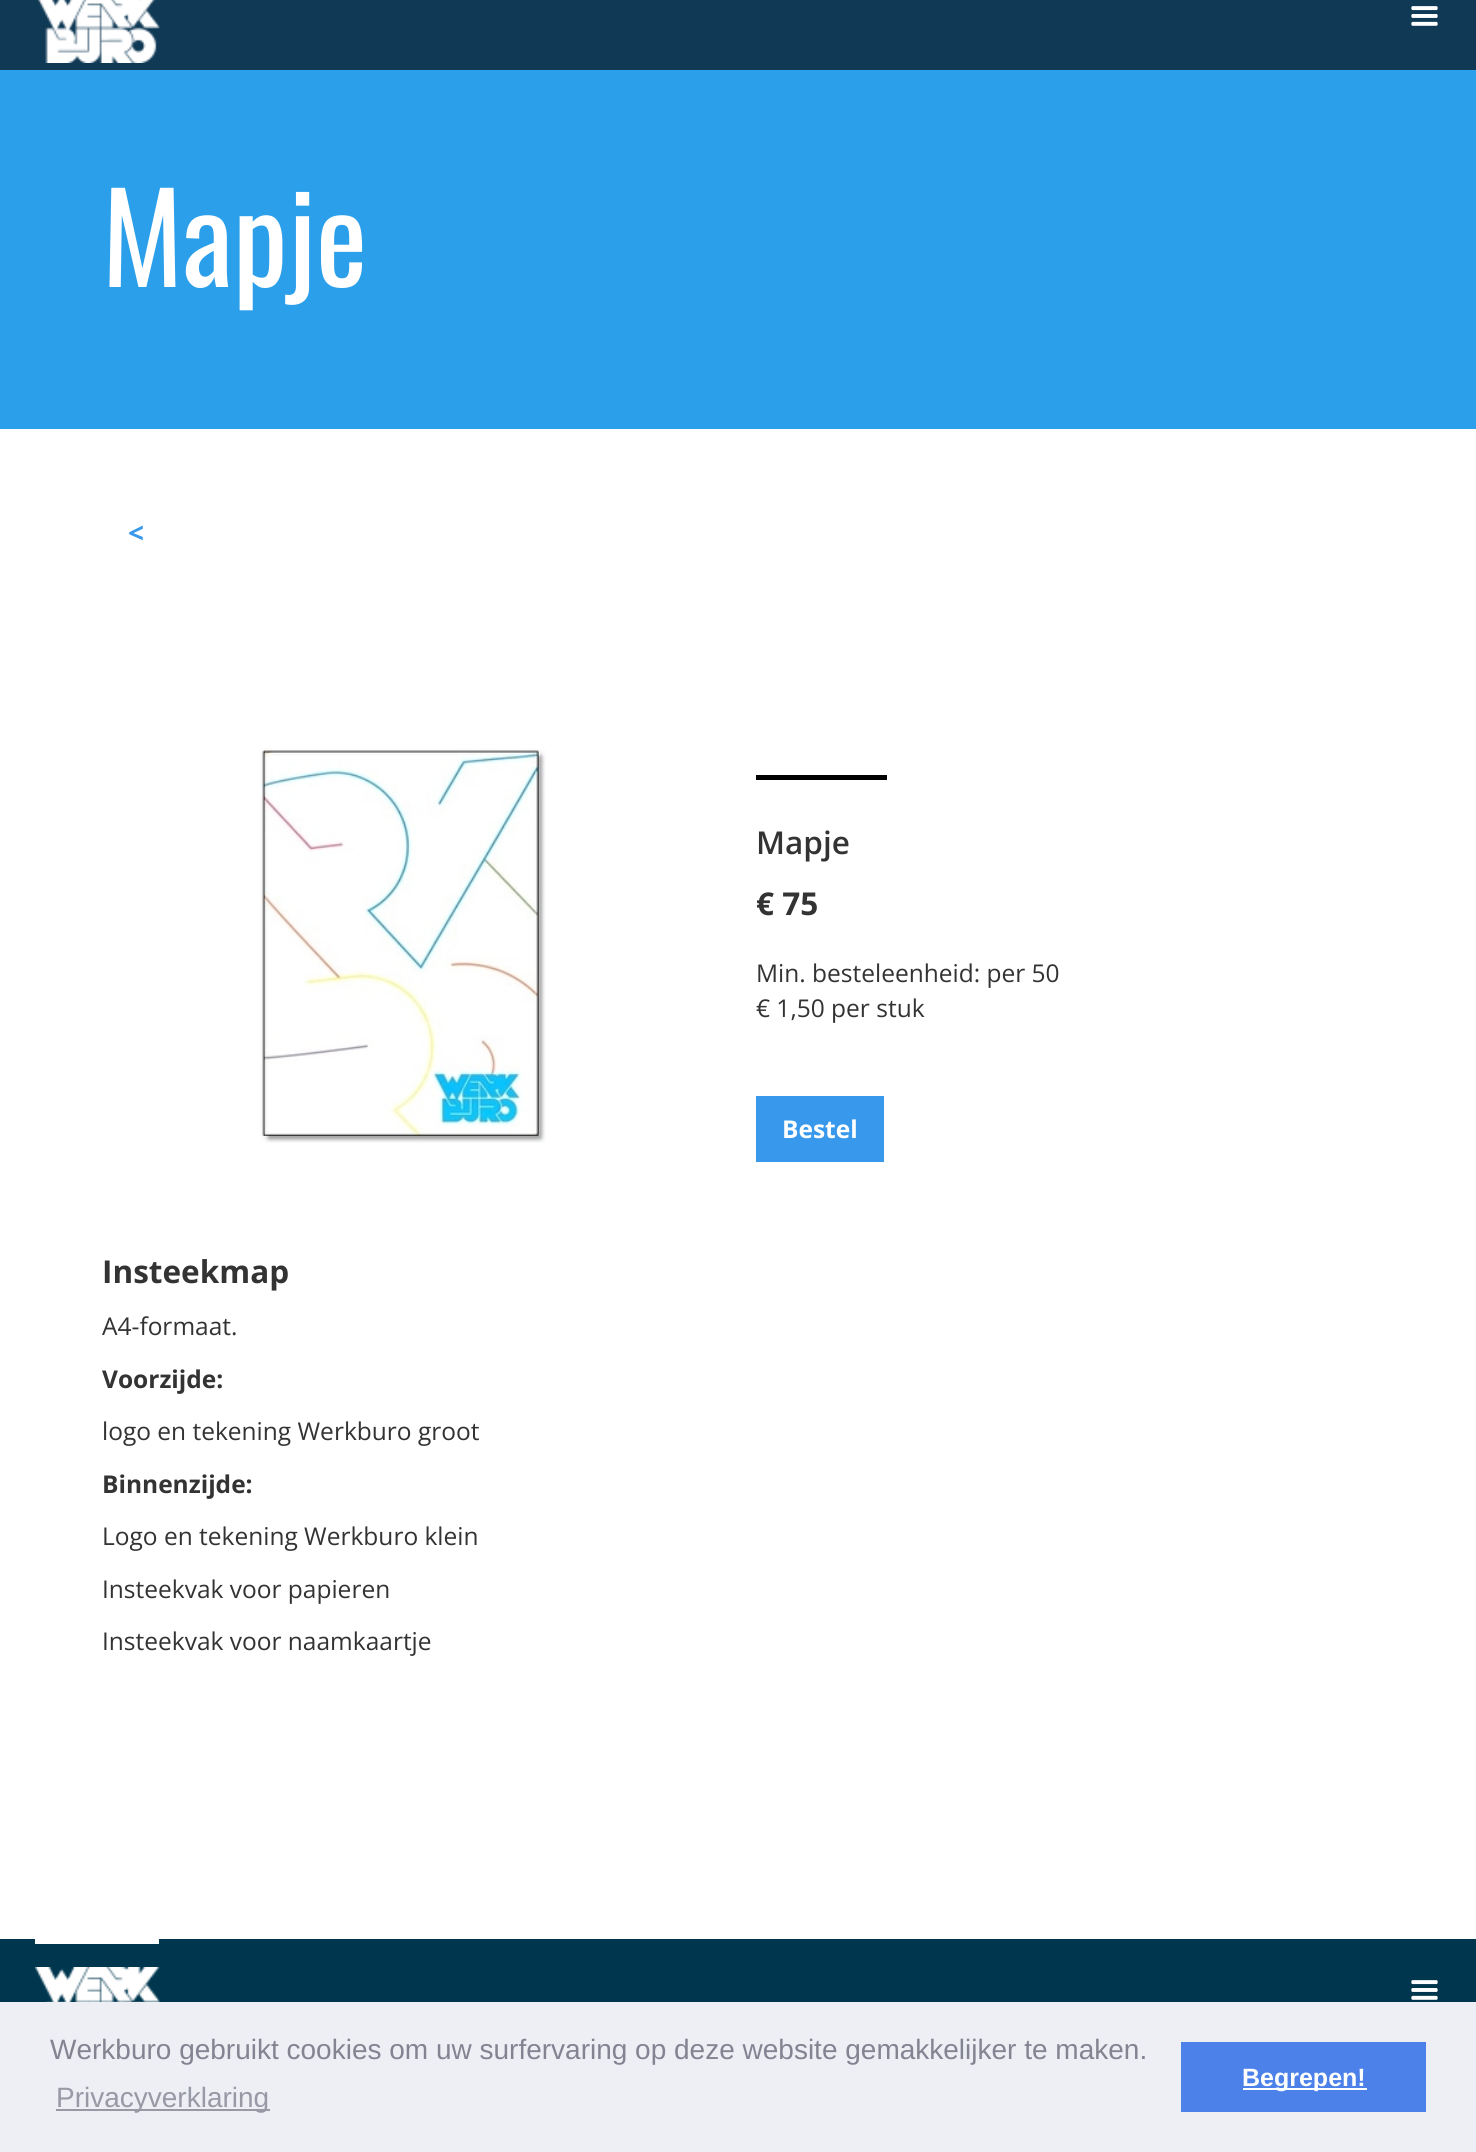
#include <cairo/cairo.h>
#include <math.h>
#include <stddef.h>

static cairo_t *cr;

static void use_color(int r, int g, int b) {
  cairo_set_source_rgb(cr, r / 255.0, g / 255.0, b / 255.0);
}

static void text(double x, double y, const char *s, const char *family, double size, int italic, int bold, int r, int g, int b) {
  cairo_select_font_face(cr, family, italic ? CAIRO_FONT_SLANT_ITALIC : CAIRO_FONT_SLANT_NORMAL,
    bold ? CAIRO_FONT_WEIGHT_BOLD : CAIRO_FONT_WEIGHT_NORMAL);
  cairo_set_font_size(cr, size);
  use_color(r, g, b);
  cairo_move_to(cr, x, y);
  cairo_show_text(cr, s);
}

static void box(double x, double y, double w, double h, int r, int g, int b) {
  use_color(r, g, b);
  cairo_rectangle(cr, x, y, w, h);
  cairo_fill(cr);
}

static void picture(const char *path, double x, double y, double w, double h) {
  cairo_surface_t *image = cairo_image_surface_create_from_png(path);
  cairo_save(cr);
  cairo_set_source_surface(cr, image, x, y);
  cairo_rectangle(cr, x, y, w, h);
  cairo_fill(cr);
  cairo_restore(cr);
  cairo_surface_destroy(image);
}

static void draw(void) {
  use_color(255, 255, 255);
  cairo_paint(cr);
  box(0, 0, 1476, 70, 16, 57, 85);
  picture("img_01.png", 38, 0, 122, 63);
  picture("img_02.png", 1411, 6, 27, 20);
  box(0, 70, 1476, 359, 44, 159, 235);
  picture("img_03.png", 260, 748, 286, 395);
  box(756, 775, 131, 5, 0, 0, 0);
  box(756, 1096, 128, 66, 56, 152, 236);
  box(0, 1939, 1476, 63, 0, 55, 79);
  box(35, 1939, 124, 5, 255, 255, 255);
  picture("img_04.png", 35, 1967, 125, 35);
  picture("img_05.png", 1411, 1980, 27, 20);
  box(0, 2002, 1476, 150, 237, 239, 245);
  box(56, 2109, 214, 2, 152, 153, 165);
  box(1181, 2042, 245, 70, 75, 129, 232);
  box(1243, 2088, 124, 2, 255, 255, 255);
  text(102, 287, "Mapje", "Oswald", 122.5, 0, 0, 255, 255, 255);
  text(128, 543, "<", "Open Sans", 28, 0, 1, 56, 152, 236);
  text(756, 854, "Mapje", "Open Sans SemiBold", 31.5, 0, 0, 51, 51, 51);
  text(756, 915, "€ 75", "Open Sans", 31.5, 0, 1, 51, 51, 51);
  text(756, 982, "Min. besteleenheid: per 50", "Open Sans", 24.5, 0, 0, 51, 51, 51);
  text(756, 1017, "€ 1,50 per stuk", "Open Sans", 24.5, 0, 0, 51, 51, 51);
  text(782, 1138, "Bestel", "Open Sans", 24.5, 0, 1, 255, 255, 255);
  text(102, 1283, "Insteekmap", "Open Sans", 31.5, 0, 1, 51, 51, 51);
  text(102, 1335, "A4-formaat.", "Open Sans", 24.5, 0, 0, 51, 51, 51);
  text(102, 1388, "Voorzijde:", "Open Sans", 24.5, 0, 1, 51, 51, 51);
  text(102, 1440, "logo en tekening Werkburo groot", "Open Sans", 24.5, 0, 0, 51, 51, 51);
  text(102, 1493, "Binnenzijde:", "Open Sans", 24.5, 0, 1, 51, 51, 51);
  text(102, 1545, "Logo en tekening Werkburo klein", "Open Sans", 24.5, 0, 0, 51, 51, 51);
  text(102, 1598, "Insteekvak voor papieren", "Open Sans", 24.5, 0, 0, 51, 51, 51);
  text(102, 1650, "Insteekvak voor naamkaartje", "Open Sans", 24.5, 0, 0, 51, 51, 51);
  text(50, 2059, "Werkburo gebruikt cookies om uw surfervaring op deze website gemakkelijker te maken.", "Liberation Sans", 28, 0, 0, 131, 131, 145);
  text(56, 2107, "Privacyverklaring", "Liberation Sans", 28, 0, 0, 152, 153, 165);
  text(1242, 2086, "Begrepen!", "Liberation Sans", 25, 0, 1, 255, 255, 255);
}

int main(void) {
  cairo_surface_t *surface = cairo_image_surface_create(CAIRO_FORMAT_RGB24, 1476, 2152);
  cr = cairo_create(surface);
  cairo_font_options_t *options = cairo_font_options_create();
  cairo_font_options_set_hint_metrics(options, CAIRO_HINT_METRICS_OFF);
  cairo_font_options_set_hint_style(options, CAIRO_HINT_STYLE_NONE);
  cairo_set_font_options(cr, options);
  cairo_set_miter_limit(cr, 4);
  draw();
  cairo_surface_write_to_png(surface, "out.png");
  cairo_font_options_destroy(options);
  cairo_destroy(cr);
  cairo_surface_destroy(surface);
  return 0;
}
